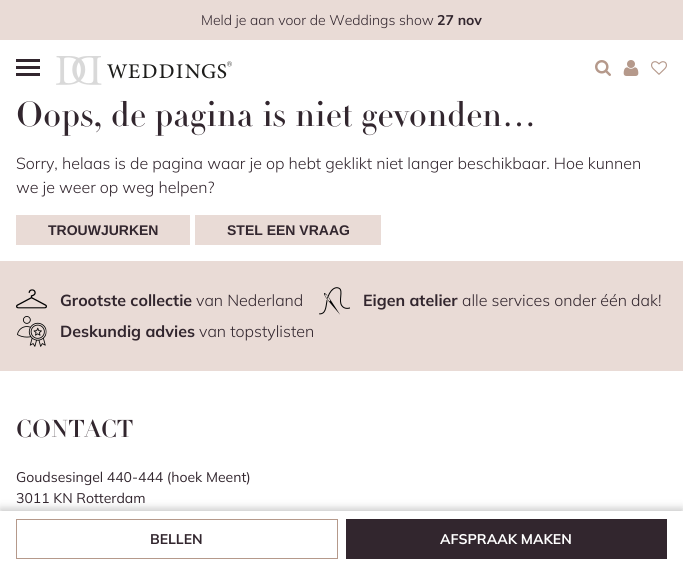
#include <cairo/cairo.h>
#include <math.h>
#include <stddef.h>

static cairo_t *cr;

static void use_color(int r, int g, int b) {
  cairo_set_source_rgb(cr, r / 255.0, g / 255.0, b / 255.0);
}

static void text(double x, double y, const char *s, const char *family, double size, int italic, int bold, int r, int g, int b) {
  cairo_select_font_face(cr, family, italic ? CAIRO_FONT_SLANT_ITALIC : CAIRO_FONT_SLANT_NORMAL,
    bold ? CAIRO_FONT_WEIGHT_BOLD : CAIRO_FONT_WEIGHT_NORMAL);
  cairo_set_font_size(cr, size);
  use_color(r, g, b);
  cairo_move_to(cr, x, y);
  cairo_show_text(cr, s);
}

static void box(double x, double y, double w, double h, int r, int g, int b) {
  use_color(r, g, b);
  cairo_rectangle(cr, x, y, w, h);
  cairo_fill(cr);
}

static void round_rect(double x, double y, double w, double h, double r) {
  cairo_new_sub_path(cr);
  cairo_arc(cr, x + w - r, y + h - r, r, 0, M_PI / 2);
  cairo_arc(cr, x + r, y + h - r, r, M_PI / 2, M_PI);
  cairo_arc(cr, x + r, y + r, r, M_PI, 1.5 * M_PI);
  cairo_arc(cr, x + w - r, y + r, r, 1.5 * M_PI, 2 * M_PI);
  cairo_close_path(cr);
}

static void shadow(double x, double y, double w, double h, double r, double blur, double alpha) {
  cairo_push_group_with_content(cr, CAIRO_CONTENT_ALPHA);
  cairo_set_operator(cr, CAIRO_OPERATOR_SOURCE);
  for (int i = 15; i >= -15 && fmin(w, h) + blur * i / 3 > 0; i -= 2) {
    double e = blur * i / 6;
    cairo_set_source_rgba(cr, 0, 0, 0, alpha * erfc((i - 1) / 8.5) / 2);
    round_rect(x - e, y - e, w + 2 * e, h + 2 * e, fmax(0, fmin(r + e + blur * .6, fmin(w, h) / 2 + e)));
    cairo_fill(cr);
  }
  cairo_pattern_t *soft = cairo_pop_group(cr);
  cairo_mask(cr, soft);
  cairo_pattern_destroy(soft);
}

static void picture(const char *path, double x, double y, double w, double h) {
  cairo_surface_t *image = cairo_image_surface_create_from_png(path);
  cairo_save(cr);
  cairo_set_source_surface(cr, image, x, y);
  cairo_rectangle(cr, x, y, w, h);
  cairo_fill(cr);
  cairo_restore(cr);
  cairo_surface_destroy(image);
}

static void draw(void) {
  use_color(255, 255, 255);
  cairo_paint(cr);
  box(0, 0, 683, 40, 233, 219, 214);
  box(16, 66, 24, 3, 50, 38, 46);
  box(16, 59, 24, 3, 50, 38, 46);
  box(16, 73, 24, 3, 50, 38, 46);
  picture("img_01.png", 56, 56, 176, 29);
  picture("img_02.png", 595, 60, 16, 16);
  picture("img_03.png", 623, 60, 16, 16);
  picture("img_04.png", 651, 61, 16, 14);
  box(16, 215, 174, 30, 233, 219, 214);
  box(195, 215, 186, 30, 233, 219, 214);
  box(0, 261, 683, 110, 233, 219, 214);
  picture("img_05.png", 16, 289, 31, 20);
  picture("img_06.png", 319, 287, 31, 28);
  picture("img_07.png", 17, 316, 30, 31);
  use_color(0, 0, 0);
  shadow(0, 508, 683, 56, 0, 4, 0.2);
  box(0, 511, 683, 56, 255, 255, 255);
  cairo_rectangle(cr, 16.5, 519.5, 321, 39);
  use_color(181, 153, 139);
  cairo_set_line_width(cr, 1);
  cairo_stroke(cr);
  box(346, 519, 321, 40, 50, 38, 46);
  text(201, 25, "Meld je aan voor de Weddings show", "Mulish Light", 14, 0, 0, 50, 38, 46);
  text(437, 25, "27 nov", "Mulish", 14, 0, 1, 50, 38, 46);
  text(16, 126, "Oops, de pagina is niet gevonden…", "Didot", 34, 0, 0, 50, 38, 46);
  text(16, 169, "Sorry, helaas is de pagina waar je op hebt geklikt niet langer beschikbaar. Hoe kunnen", "Mulish Light", 16, 0, 0, 50, 38, 46);
  text(16, 193, "we je weer op weg helpen?", "Mulish Light", 16, 0, 0, 50, 38, 46);
  text(48, 235, "TROUWJURKEN", "Liberation Sans", 14, 0, 1, 50, 38, 46);
  text(227, 235, "STEL EEN VRAAG", "Liberation Sans", 14, 0, 1, 50, 38, 46);
  text(60, 306, "Grootste collectie", "Mulish", 16, 0, 1, 50, 38, 46);
  text(196, 306, "van Nederland", "Mulish Light", 16, 0, 0, 50, 38, 46);
  text(363, 306, "Eigen atelier", "Mulish", 16, 0, 1, 50, 38, 46);
  text(462, 306, "alle services onder één dak!", "Mulish Light", 16, 0, 0, 50, 38, 46);
  text(60, 337, "Deskundig advies", "Mulish", 16, 0, 1, 50, 38, 46);
  text(199, 337, "van topstylisten", "Mulish Light", 16, 0, 0, 50, 38, 46);
  text(16, 437, "CONTACT", "Didot", 24, 0, 0, 50, 38, 46);
  text(16, 482, "Goudsesingel 440-444 (hoek Meent)", "Mulish", 14, 0, 0, 50, 38, 46);
  text(16, 503, "3011 KN Rotterdam", "Mulish", 14, 0, 0, 50, 38, 46);
  text(150, 544, "BELLEN", "Mulish", 14, 0, 1, 50, 38, 46);
  text(440, 544, "AFSPRAAK MAKEN", "Mulish", 14, 0, 1, 255, 255, 255);
}

int main(void) {
  cairo_surface_t *surface = cairo_image_surface_create(CAIRO_FORMAT_RGB24, 683, 567);
  cr = cairo_create(surface);
  cairo_font_options_t *options = cairo_font_options_create();
  cairo_font_options_set_hint_metrics(options, CAIRO_HINT_METRICS_OFF);
  cairo_font_options_set_hint_style(options, CAIRO_HINT_STYLE_NONE);
  cairo_set_font_options(cr, options);
  cairo_set_miter_limit(cr, 4);
  draw();
  cairo_surface_write_to_png(surface, "out.png");
  cairo_font_options_destroy(options);
  cairo_destroy(cr);
  cairo_surface_destroy(surface);
  return 0;
}
